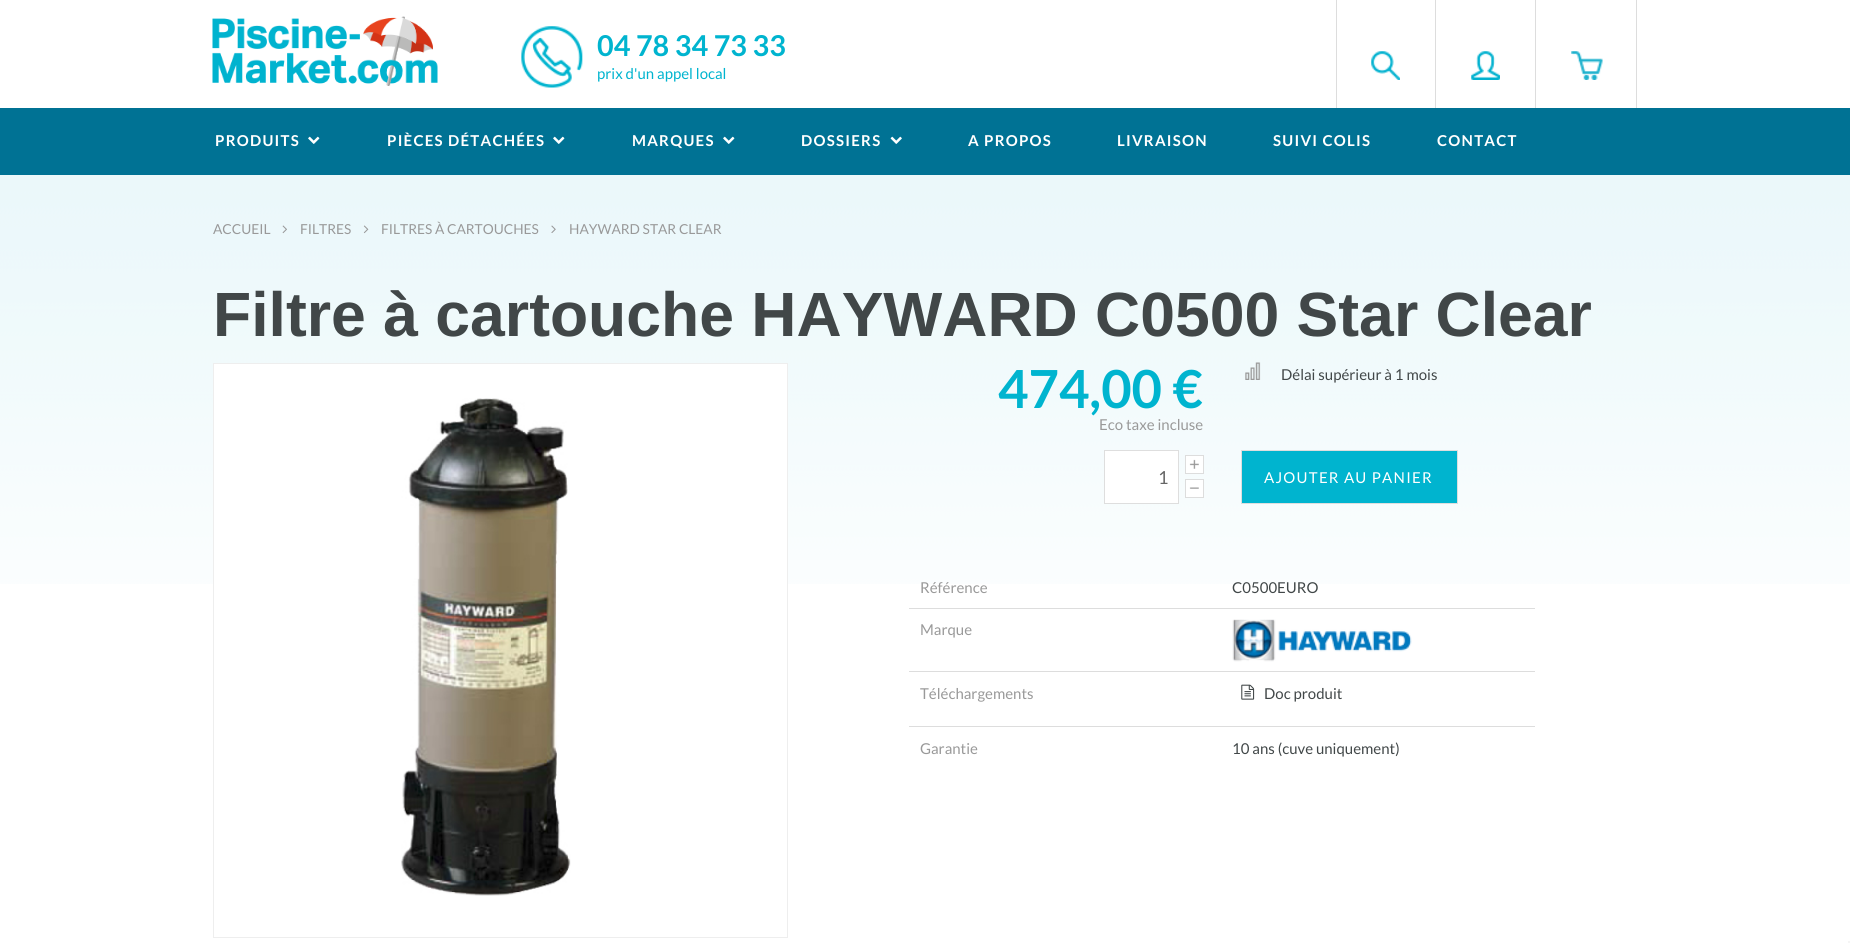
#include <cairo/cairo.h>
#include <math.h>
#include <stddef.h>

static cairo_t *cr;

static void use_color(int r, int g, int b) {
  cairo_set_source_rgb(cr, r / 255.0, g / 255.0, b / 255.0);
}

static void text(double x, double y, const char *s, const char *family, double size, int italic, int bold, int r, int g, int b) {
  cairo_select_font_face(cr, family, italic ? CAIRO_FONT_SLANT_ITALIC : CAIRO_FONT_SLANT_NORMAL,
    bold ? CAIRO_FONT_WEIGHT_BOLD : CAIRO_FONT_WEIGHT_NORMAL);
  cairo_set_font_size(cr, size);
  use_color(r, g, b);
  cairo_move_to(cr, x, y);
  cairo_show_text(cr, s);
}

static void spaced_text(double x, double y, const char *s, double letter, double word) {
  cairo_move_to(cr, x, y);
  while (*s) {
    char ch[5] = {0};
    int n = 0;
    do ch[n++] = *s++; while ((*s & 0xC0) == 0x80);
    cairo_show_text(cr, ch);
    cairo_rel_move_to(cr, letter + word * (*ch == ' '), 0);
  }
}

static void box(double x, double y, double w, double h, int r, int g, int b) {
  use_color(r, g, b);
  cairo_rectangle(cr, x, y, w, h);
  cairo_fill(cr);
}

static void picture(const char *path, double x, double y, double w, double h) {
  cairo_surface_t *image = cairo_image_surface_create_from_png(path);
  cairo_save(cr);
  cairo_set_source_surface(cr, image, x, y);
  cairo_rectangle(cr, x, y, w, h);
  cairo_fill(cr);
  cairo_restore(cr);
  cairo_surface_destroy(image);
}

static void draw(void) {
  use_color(255, 255, 255);
  cairo_paint(cr);
  picture("img_01.png", 212, 16, 226, 70);
  picture("img_02.png", 521, 26, 62, 62);
  picture("img_03.png", 1371, 51, 29, 29);
  box(1435, 0, 1, 108, 221, 221, 221);
  box(1336, 0, 1, 108, 221, 221, 221);
  picture("img_04.png", 1471, 51, 29, 29);
  box(1535, 0, 1, 108, 221, 221, 221);
  picture("img_05.png", 1571, 51, 32, 29);
  box(1636, 0, 1, 108, 221, 221, 221);
  box(0, 108, 1850, 67, 0, 114, 148);
  picture("img_06.png", 308, 136, 12, 8);
  picture("img_06.png", 553, 136, 12, 8);
  picture("img_06.png", 723, 136, 12, 8);
  picture("img_07.png", 890, 136, 12, 8);
  picture("img_08.png", 0, 175, 1850, 409);
  picture("img_09.png", 282, 225, 5, 9);
  picture("img_10.png", 363, 225, 6, 9);
  picture("img_11.png", 551, 225, 5, 8);
  box(214, 364, 573, 220, 255, 255, 255);
  cairo_rectangle(cr, 213.5, 363.5, 574, 574);
  use_color(238, 238, 238);
  cairo_set_line_width(cr, 1);
  cairo_stroke(cr);
  picture("img_12.png", 401, 398, 170, 498);
  picture("img_13.png", 1245, 362, 16, 18);
  use_color(255, 255, 255);
  cairo_rectangle(cr, 1104.5, 450.5, 74, 53);
  cairo_fill_preserve(cr);
  use_color(222, 222, 222);
  cairo_stroke(cr);
  picture("img_14.png", 1186, 456, 17, 17);
  cairo_rectangle(cr, 1185.5, 455.5, 18, 18);
  use_color(221, 221, 221);
  cairo_stroke(cr);
  picture("img_15.png", 1186, 480, 17, 17);
  cairo_rectangle(cr, 1185.5, 479.5, 18, 18);
  cairo_stroke(cr);
  use_color(0, 180, 207);
  cairo_rectangle(cr, 1241.5, 450.5, 216, 53);
  cairo_fill_preserve(cr);
  use_color(222, 222, 222);
  cairo_stroke(cr);
  box(909, 608, 626, 1, 221, 221, 221);
  picture("img_16.png", 1232, 619, 180, 43);
  box(909, 671, 626, 1, 221, 221, 221);
  picture("img_17.png", 1241, 684, 14, 16);
  box(909, 726, 626, 1, 221, 221, 221);
  box(1848, 941, 2, 2, 245, 245, 245);
  text(597, 56, "04 78 34 73 33", "Lato", 28.75, 0, 1, 0, 180, 207);
  text(597, 79, "prix d'un appel local", "Lato", 15, 0, 0, 0, 180, 207);
  cairo_select_font_face(cr, "Lato", CAIRO_FONT_SLANT_NORMAL, CAIRO_FONT_WEIGHT_BOLD);
  use_color(255, 255, 255);
  spaced_text(215, 146, "PRODUITS", 1.25, 0);
  spaced_text(387, 146, "PIÈCES DÉTACHÉES", 1.25, 0);
  spaced_text(632, 146, "MARQUES", 1.25, 0);
  spaced_text(801, 146, "DOSSIERS", 1.25, 0);
  spaced_text(968, 146, "A PROPOS", 1.25, 0);
  spaced_text(1117, 146, "LIVRAISON", 1.25, 0);
  spaced_text(1273, 146, "SUIVI COLIS", 1.25, 0);
  spaced_text(1437, 146, "CONTACT", 1.25, 0);
  text(213, 234, "ACCUEIL", "Lato", 13.75, 0, 0, 153, 153, 153);
  text(300, 234, "FILTRES", "Lato", 13.75, 0, 0, 153, 153, 153);
  text(381, 234, "FILTRES À CARTOUCHES", "Lato", 13.75, 0, 0, 153, 153, 153);
  text(569, 234, "HAYWARD STAR CLEAR", "Lato", 13.75, 0, 0, 153, 153, 153);
  text(213, 336, "Filtre à cartouche HAYWARD C0500 Star Clear", "Liberation Sans", 62.5, 0, 1, 65, 71, 72);
  text(998, 408, "474,00 €", "Lato", 52.5, 0, 1, 0, 180, 207);
  text(1099, 430, "Eco taxe incluse", "Lato", 15, 0, 0, 153, 153, 153);
  text(1281, 380, "Délai supérieur à 1 mois", "Lato", 15, 0, 0, 65, 71, 72);
  text(1158, 484, "1", "Lato", 18, 0, 0, 102, 102, 102);
  cairo_set_font_size(cr, 15);
  use_color(255, 255, 255);
  spaced_text(1264, 483, "AJOUTER AU PANIER", 1.25, 0);
  text(920, 593, "Référence", "Lato", 15, 0, 0, 153, 153, 153);
  text(1232, 593, "C0500EURO", "Lato", 15, 0, 0, 65, 71, 72);
  text(920, 635, "Marque", "Lato", 15, 0, 0, 153, 153, 153);
  text(920, 699, "Téléchargements", "Lato", 15, 0, 0, 153, 153, 153);
  text(1264, 699, "Doc produit", "Lato", 15, 0, 0, 65, 71, 72);
  text(920, 754, "Garantie", "Lato", 15, 0, 0, 153, 153, 153);
  text(1232, 754, "10 ans (cuve uniquement)", "Lato", 15, 0, 0, 65, 71, 72);
}

int main(void) {
  cairo_surface_t *surface = cairo_image_surface_create(CAIRO_FORMAT_RGB24, 1850, 943);
  cr = cairo_create(surface);
  cairo_font_options_t *options = cairo_font_options_create();
  cairo_font_options_set_hint_metrics(options, CAIRO_HINT_METRICS_OFF);
  cairo_font_options_set_hint_style(options, CAIRO_HINT_STYLE_NONE);
  cairo_set_font_options(cr, options);
  cairo_set_miter_limit(cr, 4);
  draw();
  cairo_surface_write_to_png(surface, "out.png");
  cairo_font_options_destroy(options);
  cairo_destroy(cr);
  cairo_surface_destroy(surface);
  return 0;
}
